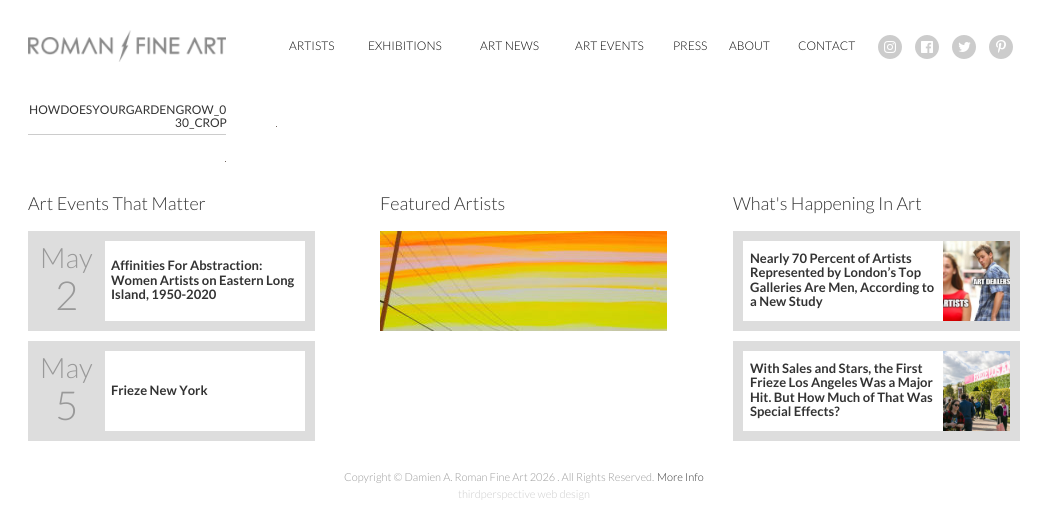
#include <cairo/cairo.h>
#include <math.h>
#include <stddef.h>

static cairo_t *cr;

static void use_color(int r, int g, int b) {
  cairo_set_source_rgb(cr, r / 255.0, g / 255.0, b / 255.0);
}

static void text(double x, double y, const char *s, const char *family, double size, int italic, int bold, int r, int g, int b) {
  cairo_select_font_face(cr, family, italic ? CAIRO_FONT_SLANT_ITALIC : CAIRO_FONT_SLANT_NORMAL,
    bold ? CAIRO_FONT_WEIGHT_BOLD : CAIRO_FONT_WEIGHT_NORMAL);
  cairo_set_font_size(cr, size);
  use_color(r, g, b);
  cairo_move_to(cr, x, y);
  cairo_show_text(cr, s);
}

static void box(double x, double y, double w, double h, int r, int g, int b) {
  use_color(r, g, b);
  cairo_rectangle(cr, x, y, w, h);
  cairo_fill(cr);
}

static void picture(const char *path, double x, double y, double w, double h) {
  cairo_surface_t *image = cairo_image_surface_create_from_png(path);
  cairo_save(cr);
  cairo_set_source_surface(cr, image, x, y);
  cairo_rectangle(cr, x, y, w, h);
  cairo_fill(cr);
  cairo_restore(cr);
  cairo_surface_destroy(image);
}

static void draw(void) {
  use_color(255, 255, 255);
  cairo_paint(cr);
  picture("img_01.png", 28, 30, 198, 32);
  use_color(204, 204, 204);
  cairo_arc(cr, 890, 47, 12, 0, 2 * M_PI);
  cairo_fill(cr);
  picture("img_02.png", 884, 41, 12, 12);
  cairo_arc(cr, 927, 47, 12, 0, 2 * M_PI);
  cairo_fill(cr);
  picture("img_03.png", 921, 41, 12, 12);
  cairo_arc(cr, 964, 47, 12, 0, 2 * M_PI);
  cairo_fill(cr);
  picture("img_04.png", 958, 42, 13, 10);
  cairo_arc(cr, 1001, 47, 12, 0, 2 * M_PI);
  cairo_fill(cr);
  picture("img_05.png", 996, 40, 10, 13);
  box(28, 134, 198, 1, 204, 204, 204);
  box(225, 161, 1, 1, 113, 101, 93);
  box(276, 126, 1, 1, 113, 101, 93);
  cairo_rectangle(cr, 33, 236, 277, 90);
  use_color(221, 221, 221);
  cairo_set_line_width(cr, 10);
  cairo_stroke(cr);
  box(38, 241, 67, 80, 221, 221, 221);
  cairo_rectangle(cr, 33, 346, 277, 90);
  cairo_stroke(cr);
  box(38, 351, 67, 80, 221, 221, 221);
  picture("img_06.png", 380, 231, 287, 100);
  cairo_rectangle(cr, 738, 236, 277, 90);
  cairo_stroke(cr);
  picture("img_07.png", 943, 241, 67, 80);
  cairo_rectangle(cr, 738, 346, 277, 90);
  cairo_stroke(cr);
  picture("img_08.png", 943, 351, 67, 80);
  text(289, 50, "ARTISTS", "Lato Light", 12, 0, 0, 8, 8, 8);
  text(368, 50, "EXHIBITIONS", "Lato Light", 12, 0, 0, 8, 8, 8);
  text(480, 50, "ART NEWS", "Lato Light", 12, 0, 0, 8, 8, 8);
  text(575, 50, "ART EVENTS", "Lato Light", 12, 0, 0, 8, 8, 8);
  text(673, 50, "PRESS", "Lato Light", 12, 0, 0, 8, 8, 8);
  text(729, 50, "ABOUT", "Lato Light", 12, 0, 0, 8, 8, 8);
  text(798, 50, "CONTACT", "Lato Light", 12, 0, 0, 8, 8, 8);
  text(29, 114, "HOWDOESYOURGARDENGROW_0", "Lato", 12, 0, 0, 51, 51, 51);
  text(175, 127, "30_CROP", "Lato", 12, 0, 0, 51, 51, 51);
  text(28, 210, "Art Events That Matter", "Lato Light", 18, 0, 0, 51, 51, 51);
  text(40, 268, "May", "Lato Light", 28, 0, 0, 153, 153, 153);
  text(55, 310, "2", "Lato Light", 40, 0, 0, 153, 153, 153);
  text(111, 270, "Affinities For Abstraction:", "Lato", 13, 0, 1, 51, 51, 51);
  text(111, 285, "Women Artists on Eastern Long", "Lato", 13, 0, 1, 51, 51, 51);
  text(111, 299, "Island, 1950-2020", "Lato", 13, 0, 1, 51, 51, 51);
  text(40, 378, "May", "Lato Light", 28, 0, 0, 153, 153, 153);
  text(55, 420, "5", "Lato Light", 40, 0, 0, 153, 153, 153);
  text(111, 395, "Frieze New York", "Lato", 13, 0, 1, 51, 51, 51);
  text(380, 210, "Featured Artists", "Lato Light", 18, 0, 0, 51, 51, 51);
  text(733, 210, "What's Happening In Art", "Lato Light", 18, 0, 0, 51, 51, 51);
  text(750, 263, "Nearly 70 Percent of Artists", "Lato", 13, 0, 1, 51, 51, 51);
  text(750, 277, "Represented by London’s Top", "Lato", 13, 0, 1, 51, 51, 51);
  text(750, 292, "Galleries Are Men, According to", "Lato", 13, 0, 1, 51, 51, 51);
  text(750, 306, "a New Study", "Lato", 13, 0, 1, 51, 51, 51);
  text(750, 373, "With Sales and Stars, the First", "Lato", 13, 0, 1, 51, 51, 51);
  text(750, 387, "Frieze Los Angeles Was a Major", "Lato", 13, 0, 1, 51, 51, 51);
  text(750, 402, "Hit. But How Much of That Was", "Lato", 13, 0, 1, 51, 51, 51);
  text(750, 416, "Special Effects?", "Lato", 13, 0, 1, 51, 51, 51);
  text(344, 481, "Copyright © Damien A. Roman Fine Art 2026 . All Rights Reserved.", "Lato Light", 11, 0, 0, 153, 153, 153);
  text(657, 481, "More Info", "Lato Light", 11, 0, 0, 51, 51, 51);
  text(458, 498, "thirdperspective web design", "Lato Light", 11, 0, 0, 204, 204, 204);
}

int main(void) {
  cairo_surface_t *surface = cairo_image_surface_create(CAIRO_FORMAT_RGB24, 1048, 520);
  cr = cairo_create(surface);
  cairo_font_options_t *options = cairo_font_options_create();
  cairo_font_options_set_hint_metrics(options, CAIRO_HINT_METRICS_OFF);
  cairo_font_options_set_hint_style(options, CAIRO_HINT_STYLE_NONE);
  cairo_set_font_options(cr, options);
  cairo_set_miter_limit(cr, 4);
  draw();
  cairo_surface_write_to_png(surface, "out.png");
  cairo_font_options_destroy(options);
  cairo_destroy(cr);
  cairo_surface_destroy(surface);
  return 0;
}
